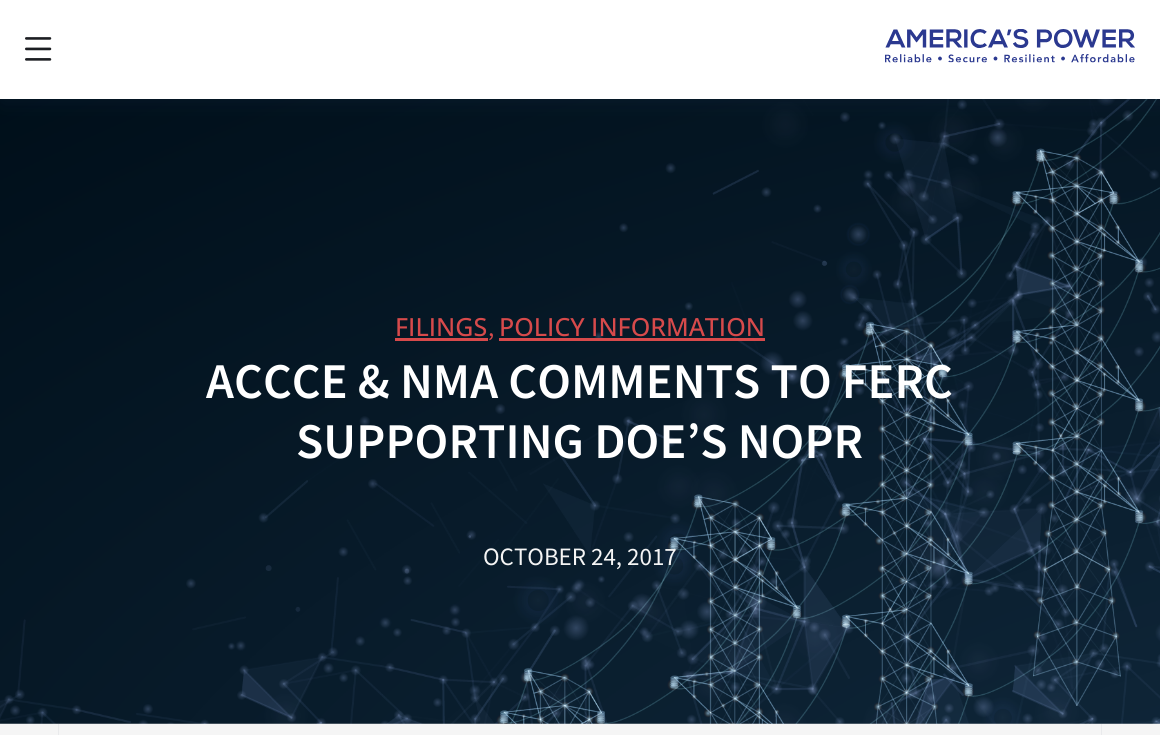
#include <cairo/cairo.h>
#include <math.h>
#include <stddef.h>

static cairo_t *cr;

static void use_color(int r, int g, int b) {
  cairo_set_source_rgb(cr, r / 255.0, g / 255.0, b / 255.0);
}

static void text(double x, double y, const char *s, const char *family, double size, int italic, int bold, int r, int g, int b) {
  cairo_select_font_face(cr, family, italic ? CAIRO_FONT_SLANT_ITALIC : CAIRO_FONT_SLANT_NORMAL,
    bold ? CAIRO_FONT_WEIGHT_BOLD : CAIRO_FONT_WEIGHT_NORMAL);
  cairo_set_font_size(cr, size);
  use_color(r, g, b);
  cairo_move_to(cr, x, y);
  cairo_show_text(cr, s);
}

static void spaced_text(double x, double y, const char *s, double letter, double word) {
  cairo_move_to(cr, x, y);
  while (*s) {
    char ch[5] = {0};
    int n = 0;
    do ch[n++] = *s++; while ((*s & 0xC0) == 0x80);
    cairo_show_text(cr, ch);
    cairo_rel_move_to(cr, letter + word * (*ch == ' '), 0);
  }
}

static void box(double x, double y, double w, double h, int r, int g, int b) {
  use_color(r, g, b);
  cairo_rectangle(cr, x, y, w, h);
  cairo_fill(cr);
}

static void round_rect(double x, double y, double w, double h, double r) {
  cairo_new_sub_path(cr);
  cairo_arc(cr, x + w - r, y + h - r, r, 0, M_PI / 2);
  cairo_arc(cr, x + r, y + h - r, r, M_PI / 2, M_PI);
  cairo_arc(cr, x + r, y + r, r, M_PI, 1.5 * M_PI);
  cairo_arc(cr, x + w - r, y + r, r, 1.5 * M_PI, 2 * M_PI);
  cairo_close_path(cr);
}

static void shadow(double x, double y, double w, double h, double r, double blur, double alpha) {
  cairo_push_group_with_content(cr, CAIRO_CONTENT_ALPHA);
  cairo_set_operator(cr, CAIRO_OPERATOR_SOURCE);
  for (int i = 15; i >= -15 && fmin(w, h) + blur * i / 3 > 0; i -= 2) {
    double e = blur * i / 6;
    cairo_set_source_rgba(cr, 0, 0, 0, alpha * erfc((i - 1) / 8.5) / 2);
    round_rect(x - e, y - e, w + 2 * e, h + 2 * e, fmax(0, fmin(r + e + blur * .6, fmin(w, h) / 2 + e)));
    cairo_fill(cr);
  }
  cairo_pattern_t *soft = cairo_pop_group(cr);
  cairo_mask(cr, soft);
  cairo_pattern_destroy(soft);
}

static void picture(const char *path, double x, double y, double w, double h) {
  cairo_surface_t *image = cairo_image_surface_create_from_png(path);
  cairo_save(cr);
  cairo_set_source_surface(cr, image, x, y);
  cairo_rectangle(cr, x, y, w, h);
  cairo_fill(cr);
  cairo_restore(cr);
  cairo_surface_destroy(image);
}

static void draw(void) {
  use_color(245, 245, 245);
  cairo_paint(cr);
  picture("img_03.png", 0, 99, 1160, 625);
  cairo_set_source_rgba(cr, 0.004, 0.086, 0.251, 0.05);
  cairo_rectangle(cr, 1101, 121, 1, 507);
  cairo_fill(cr);
  use_color(42, 67, 113);
  shadow(3, 3, 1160, 98, 0, 9.5, 0.15);
  box(0, 0, 1160, 99, 255, 255, 255);
  picture("img_01.png", 25, 37, 27, 24);
  picture("img_02.png", 885, 29, 250, 34);
  box(395, 338, 93, 3, 215, 74, 75);
  box(499, 338, 266, 3, 215, 74, 75);
  box(1101, 724, 1, 11, 233, 234, 236);
  box(58, 724, 1, 11, 233, 234, 236);
  text(395, 336, "FILINGS", "Open Sans Medium", 25, 0, 0, 215, 74, 75);
  text(488, 336, ",", "Source Sans Pro", 25, 0, 0, 215, 74, 75);
  text(499, 336, "POLICY INFORMATION", "Open Sans Medium", 25, 0, 0, 215, 74, 75);
  cairo_select_font_face(cr, "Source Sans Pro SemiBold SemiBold", CAIRO_FONT_SLANT_NORMAL, CAIRO_FONT_WEIGHT_NORMAL);
  cairo_set_font_size(cr, 50);
  use_color(255, 255, 255);
  spaced_text(206, 398, "ACCCE & NMA COMMENTS TO FERC", 0.1, 0);
  spaced_text(296, 458, "SUPPORTING DOE’S NOPR", 0.1, 0);
  text(483, 565, "OCTOBER 24, 2017", "Source Sans Pro", 25, 0, 0, 245, 245, 245);
}

int main(void) {
  cairo_surface_t *surface = cairo_image_surface_create(CAIRO_FORMAT_RGB24, 1160, 735);
  cr = cairo_create(surface);
  cairo_font_options_t *options = cairo_font_options_create();
  cairo_font_options_set_hint_metrics(options, CAIRO_HINT_METRICS_OFF);
  cairo_font_options_set_hint_style(options, CAIRO_HINT_STYLE_NONE);
  cairo_set_font_options(cr, options);
  cairo_set_miter_limit(cr, 4);
  draw();
  cairo_surface_write_to_png(surface, "out.png");
  cairo_font_options_destroy(options);
  cairo_destroy(cr);
  cairo_surface_destroy(surface);
  return 0;
}
